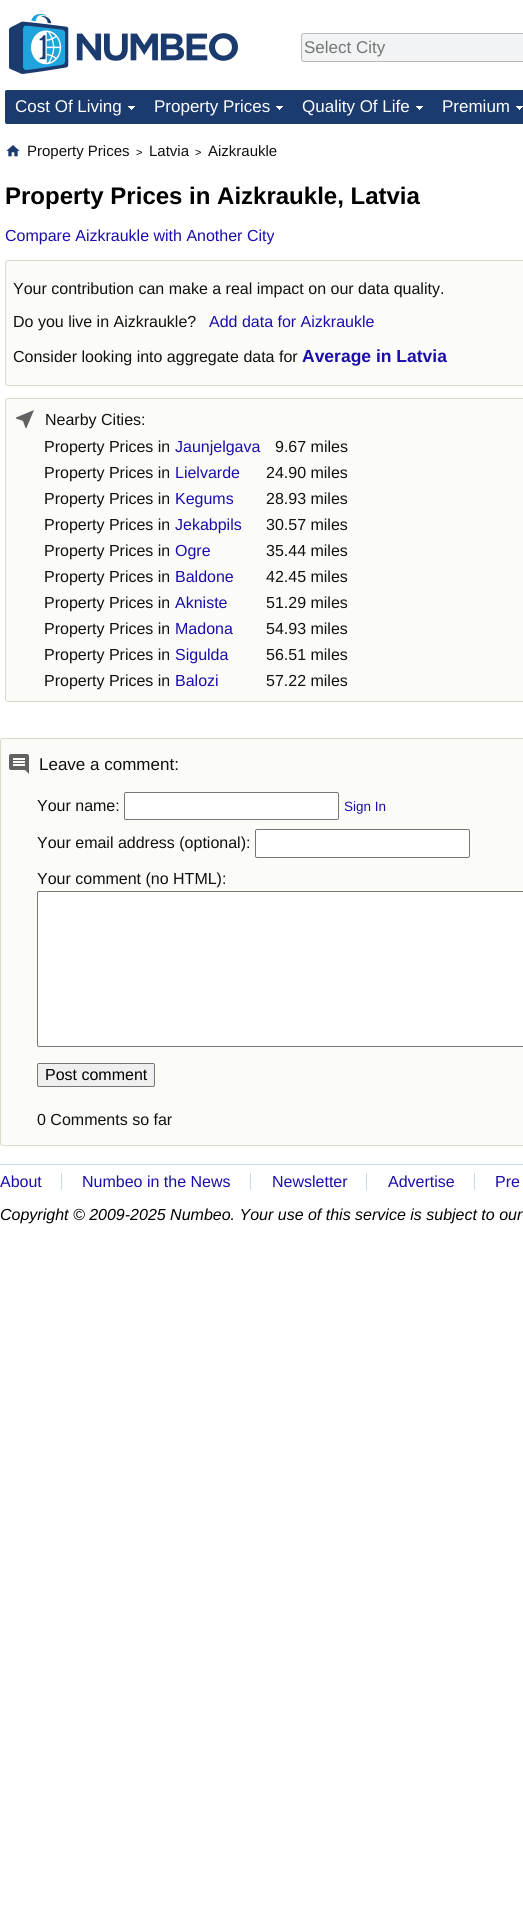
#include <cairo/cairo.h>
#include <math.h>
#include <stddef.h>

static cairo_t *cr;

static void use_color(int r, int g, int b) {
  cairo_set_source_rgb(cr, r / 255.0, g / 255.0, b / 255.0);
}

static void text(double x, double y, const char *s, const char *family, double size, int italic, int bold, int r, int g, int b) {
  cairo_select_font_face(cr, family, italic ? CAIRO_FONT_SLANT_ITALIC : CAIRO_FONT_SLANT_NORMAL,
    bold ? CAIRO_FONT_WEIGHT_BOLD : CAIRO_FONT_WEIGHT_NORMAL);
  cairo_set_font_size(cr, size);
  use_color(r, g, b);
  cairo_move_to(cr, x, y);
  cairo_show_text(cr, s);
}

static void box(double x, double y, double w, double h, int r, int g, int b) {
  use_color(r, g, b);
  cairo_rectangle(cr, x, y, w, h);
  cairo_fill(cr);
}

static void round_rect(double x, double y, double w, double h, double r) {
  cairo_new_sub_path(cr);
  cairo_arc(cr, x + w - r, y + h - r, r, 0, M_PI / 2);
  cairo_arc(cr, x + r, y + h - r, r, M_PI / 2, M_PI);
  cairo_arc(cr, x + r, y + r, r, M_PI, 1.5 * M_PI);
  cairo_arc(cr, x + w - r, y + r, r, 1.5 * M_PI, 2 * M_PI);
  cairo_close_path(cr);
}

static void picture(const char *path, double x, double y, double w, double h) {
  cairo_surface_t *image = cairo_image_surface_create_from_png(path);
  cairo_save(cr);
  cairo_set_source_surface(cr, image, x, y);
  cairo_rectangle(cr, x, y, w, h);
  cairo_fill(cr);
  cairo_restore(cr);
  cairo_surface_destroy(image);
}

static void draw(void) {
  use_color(255, 255, 255);
  cairo_paint(cr);
  picture("img_01.png", 9, 14, 229, 60);
  use_color(241, 243, 244);
  round_rect(301.5, 33.5, 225, 28, 2.5);
  cairo_fill_preserve(cr);
  use_color(187, 187, 187);
  cairo_set_line_width(cr, 1);
  cairo_stroke(cr);
  use_color(27, 59, 111);
  round_rect(5, 90, 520, 34, 2);
  cairo_fill(cr);
  round_rect(5, 90, 139, 34, 3);
  cairo_fill(cr);
  picture("img_02.png", 128, 106, 7, 4);
  picture("img_02.png", 276, 106, 7, 4);
  picture("img_02.png", 416, 106, 7, 4);
  picture("img_02.png", 516, 106, 7, 4);
  picture("img_03.png", 6, 145, 14, 12);
  use_color(251, 251, 248);
  round_rect(5.5, 260.5, 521, 125, 2.5);
  cairo_fill_preserve(cr);
  use_color(220, 218, 203);
  cairo_stroke(cr);
  use_color(251, 251, 248);
  round_rect(5.5, 398.5, 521, 303, 2.5);
  cairo_fill_preserve(cr);
  use_color(220, 218, 203);
  cairo_stroke(cr);
  use_color(98, 98, 98);
  cairo_new_path(cr);
  cairo_move_to(cr, 34, 410);
  cairo_line_to(cr, 16, 417.5);
  cairo_line_to(cr, 16, 418.5);
  cairo_line_to(cr, 23, 421);
  cairo_line_to(cr, 25.5, 428);
  cairo_line_to(cr, 26.5, 428);
  cairo_close_path(cr);
  cairo_fill(cr);
  use_color(251, 251, 248);
  round_rect(0.5, 738.5, 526, 407, 2.5);
  cairo_fill_preserve(cr);
  use_color(220, 218, 203);
  cairo_stroke(cr);
  picture("img_04.png", 9, 754, 20, 20);
  use_color(255, 255, 255);
  round_rect(124.5, 792.5, 214, 27, 1.5);
  cairo_fill_preserve(cr);
  use_color(118, 118, 118);
  cairo_stroke(cr);
  use_color(255, 255, 255);
  round_rect(255.5, 829.5, 214, 28, 1.5);
  cairo_fill_preserve(cr);
  use_color(118, 118, 118);
  cairo_stroke(cr);
  use_color(255, 255, 255);
  round_rect(37.5, 891.5, 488, 155, 1.5);
  cairo_fill_preserve(cr);
  use_color(118, 118, 118);
  cairo_stroke(cr);
  use_color(239, 239, 239);
  round_rect(37.5, 1063.5, 117, 23, 1.5);
  cairo_fill_preserve(cr);
  use_color(118, 118, 118);
  cairo_stroke(cr);
  box(0, 1164, 523, 1, 197, 219, 236);
  box(61, 1173, 1, 17, 197, 219, 236);
  box(250, 1173, 1, 17, 197, 219, 236);
  box(366, 1173, 1, 17, 197, 219, 236);
  box(474, 1173, 1, 17, 197, 219, 236);
  text(304, 53, "Select City", "Liberation Sans", 17, 0, 0, 117, 117, 117);
  text(15, 112, "Cost Of Living", "Liberation Sans", 17, 0, 0, 255, 255, 255);
  text(154, 112, "Property Prices", "Liberation Sans", 17, 0, 0, 255, 255, 255);
  text(302, 112, "Quality Of Life", "Liberation Sans", 17, 0, 0, 255, 255, 255);
  text(442, 112, "Premium", "Liberation Sans", 17, 0, 0, 255, 255, 255);
  text(27, 156, "Property Prices", "Liberation Sans", 15, 0, 0, 16, 16, 16);
  text(136, 156, ">", "Liberation Sans", 11, 0, 0, 0, 0, 0);
  text(149, 156, "Latvia", "Liberation Sans", 15, 0, 0, 16, 16, 16);
  text(195, 156, ">", "Liberation Sans", 11, 0, 0, 0, 0, 0);
  text(208, 156, "Aizkraukle", "Liberation Sans", 15, 0, 0, 16, 16, 16);
  text(5, 204, "Property Prices in Aizkraukle, Latvia", "Liberation Sans", 24, 0, 1, 0, 0, 0);
  text(5, 241, "Compare Aizkraukle with Another City", "Liberation Sans", 16, 0, 0, 26, 13, 171);
  text(13, 294, "Your contribution can make a real impact on our data quality.", "Liberation Sans", 16, 0, 0, 16, 16, 16);
  text(13, 327, "Do you live in Aizkraukle?", "Liberation Sans", 16, 0, 0, 16, 16, 16);
  text(209, 327, "Add data for Aizkraukle", "Liberation Sans", 16, 0, 0, 26, 13, 171);
  text(13, 362, "Consider looking into aggregate data for", "Liberation Sans", 16, 0, 0, 16, 16, 16);
  text(302, 362, "Average in Latvia", "Liberation Sans", 17.5, 0, 1, 26, 13, 171);
  text(45, 425, "Nearby Cities:", "Liberation Sans", 16, 0, 0, 16, 16, 16);
  text(44, 452, "Property Prices in", "Liberation Sans", 16, 0, 0, 16, 16, 16);
  text(175, 452, "Jaunjelgava", "Liberation Sans", 16, 0, 0, 26, 13, 171);
  text(275, 452, "9.67 miles", "Liberation Sans", 16, 0, 0, 16, 16, 16);
  text(44, 478, "Property Prices in", "Liberation Sans", 16, 0, 0, 16, 16, 16);
  text(175, 478, "Lielvarde", "Liberation Sans", 16, 0, 0, 26, 13, 171);
  text(266, 478, "24.90 miles", "Liberation Sans", 16, 0, 0, 16, 16, 16);
  text(44, 504, "Property Prices in", "Liberation Sans", 16, 0, 0, 16, 16, 16);
  text(175, 504, "Kegums", "Liberation Sans", 16, 0, 0, 26, 13, 171);
  text(266, 504, "28.93 miles", "Liberation Sans", 16, 0, 0, 16, 16, 16);
  text(44, 530, "Property Prices in", "Liberation Sans", 16, 0, 0, 16, 16, 16);
  text(175, 530, "Jekabpils", "Liberation Sans", 16, 0, 0, 26, 13, 171);
  text(266, 530, "30.57 miles", "Liberation Sans", 16, 0, 0, 16, 16, 16);
  text(44, 556, "Property Prices in", "Liberation Sans", 16, 0, 0, 16, 16, 16);
  text(175, 556, "Ogre", "Liberation Sans", 16, 0, 0, 26, 13, 171);
  text(266, 556, "35.44 miles", "Liberation Sans", 16, 0, 0, 16, 16, 16);
  text(44, 582, "Property Prices in", "Liberation Sans", 16, 0, 0, 16, 16, 16);
  text(175, 582, "Baldone", "Liberation Sans", 16, 0, 0, 26, 13, 171);
  text(266, 582, "42.45 miles", "Liberation Sans", 16, 0, 0, 16, 16, 16);
  text(44, 608, "Property Prices in", "Liberation Sans", 16, 0, 0, 16, 16, 16);
  text(175, 608, "Akniste", "Liberation Sans", 16, 0, 0, 26, 13, 171);
  text(266, 608, "51.29 miles", "Liberation Sans", 16, 0, 0, 16, 16, 16);
  text(44, 634, "Property Prices in", "Liberation Sans", 16, 0, 0, 16, 16, 16);
  text(175, 634, "Madona", "Liberation Sans", 16, 0, 0, 26, 13, 171);
  text(266, 634, "54.93 miles", "Liberation Sans", 16, 0, 0, 16, 16, 16);
  text(44, 660, "Property Prices in", "Liberation Sans", 16, 0, 0, 16, 16, 16);
  text(175, 660, "Sigulda", "Liberation Sans", 16, 0, 0, 26, 13, 171);
  text(266, 660, "56.51 miles", "Liberation Sans", 16, 0, 0, 16, 16, 16);
  text(44, 686, "Property Prices in", "Liberation Sans", 16, 0, 0, 16, 16, 16);
  text(175, 686, "Balozi", "Liberation Sans", 16, 0, 0, 26, 13, 171);
  text(266, 686, "57.22 miles", "Liberation Sans", 16, 0, 0, 16, 16, 16);
  text(39, 770, "Leave a comment:", "Liberation Sans", 17, 0, 0, 16, 16, 16);
  text(37, 811, "Your name:", "Liberation Sans", 16, 0, 0, 16, 16, 16);
  text(344, 811, "Sign In", "Liberation Sans", 13.5, 0, 0, 26, 13, 171);
  text(37, 848, "Your email address (optional):", "Liberation Sans", 16, 0, 0, 16, 16, 16);
  text(37, 884, "Your comment (no HTML):", "Liberation Sans", 16, 0, 0, 16, 16, 16);
  text(45, 1080, "Post comment", "Liberation Sans", 16, 0, 0, 0, 0, 0);
  text(37, 1125, "0 Comments so far", "Liberation Sans", 16, 0, 0, 16, 16, 16);
  text(0, 1187, "About", "Liberation Sans", 16, 0, 0, 26, 13, 171);
  text(82, 1187, "Numbeo in the News", "Liberation Sans", 16, 0, 0, 26, 13, 171);
  text(272, 1187, "Newsletter", "Liberation Sans", 16, 0, 0, 26, 13, 171);
  text(388, 1187, "Advertise", "Liberation Sans", 16, 0, 0, 26, 13, 171);
  text(495, 1187, "Pre", "Liberation Sans", 16, 0, 0, 26, 13, 171);
  text(0, 1220, "Copyright © 2009-2025 Numbeo. Your use of this service is subject to our", "Liberation Sans", 16, 1, 0, 0, 0, 0);
}

int main(void) {
  cairo_surface_t *surface = cairo_image_surface_create(CAIRO_FORMAT_RGB24, 523, 1916);
  cr = cairo_create(surface);
  cairo_font_options_t *options = cairo_font_options_create();
  cairo_font_options_set_hint_metrics(options, CAIRO_HINT_METRICS_OFF);
  cairo_font_options_set_hint_style(options, CAIRO_HINT_STYLE_NONE);
  cairo_set_font_options(cr, options);
  cairo_set_miter_limit(cr, 4);
  draw();
  cairo_surface_write_to_png(surface, "out.png");
  cairo_font_options_destroy(options);
  cairo_destroy(cr);
  cairo_surface_destroy(surface);
  return 0;
}
